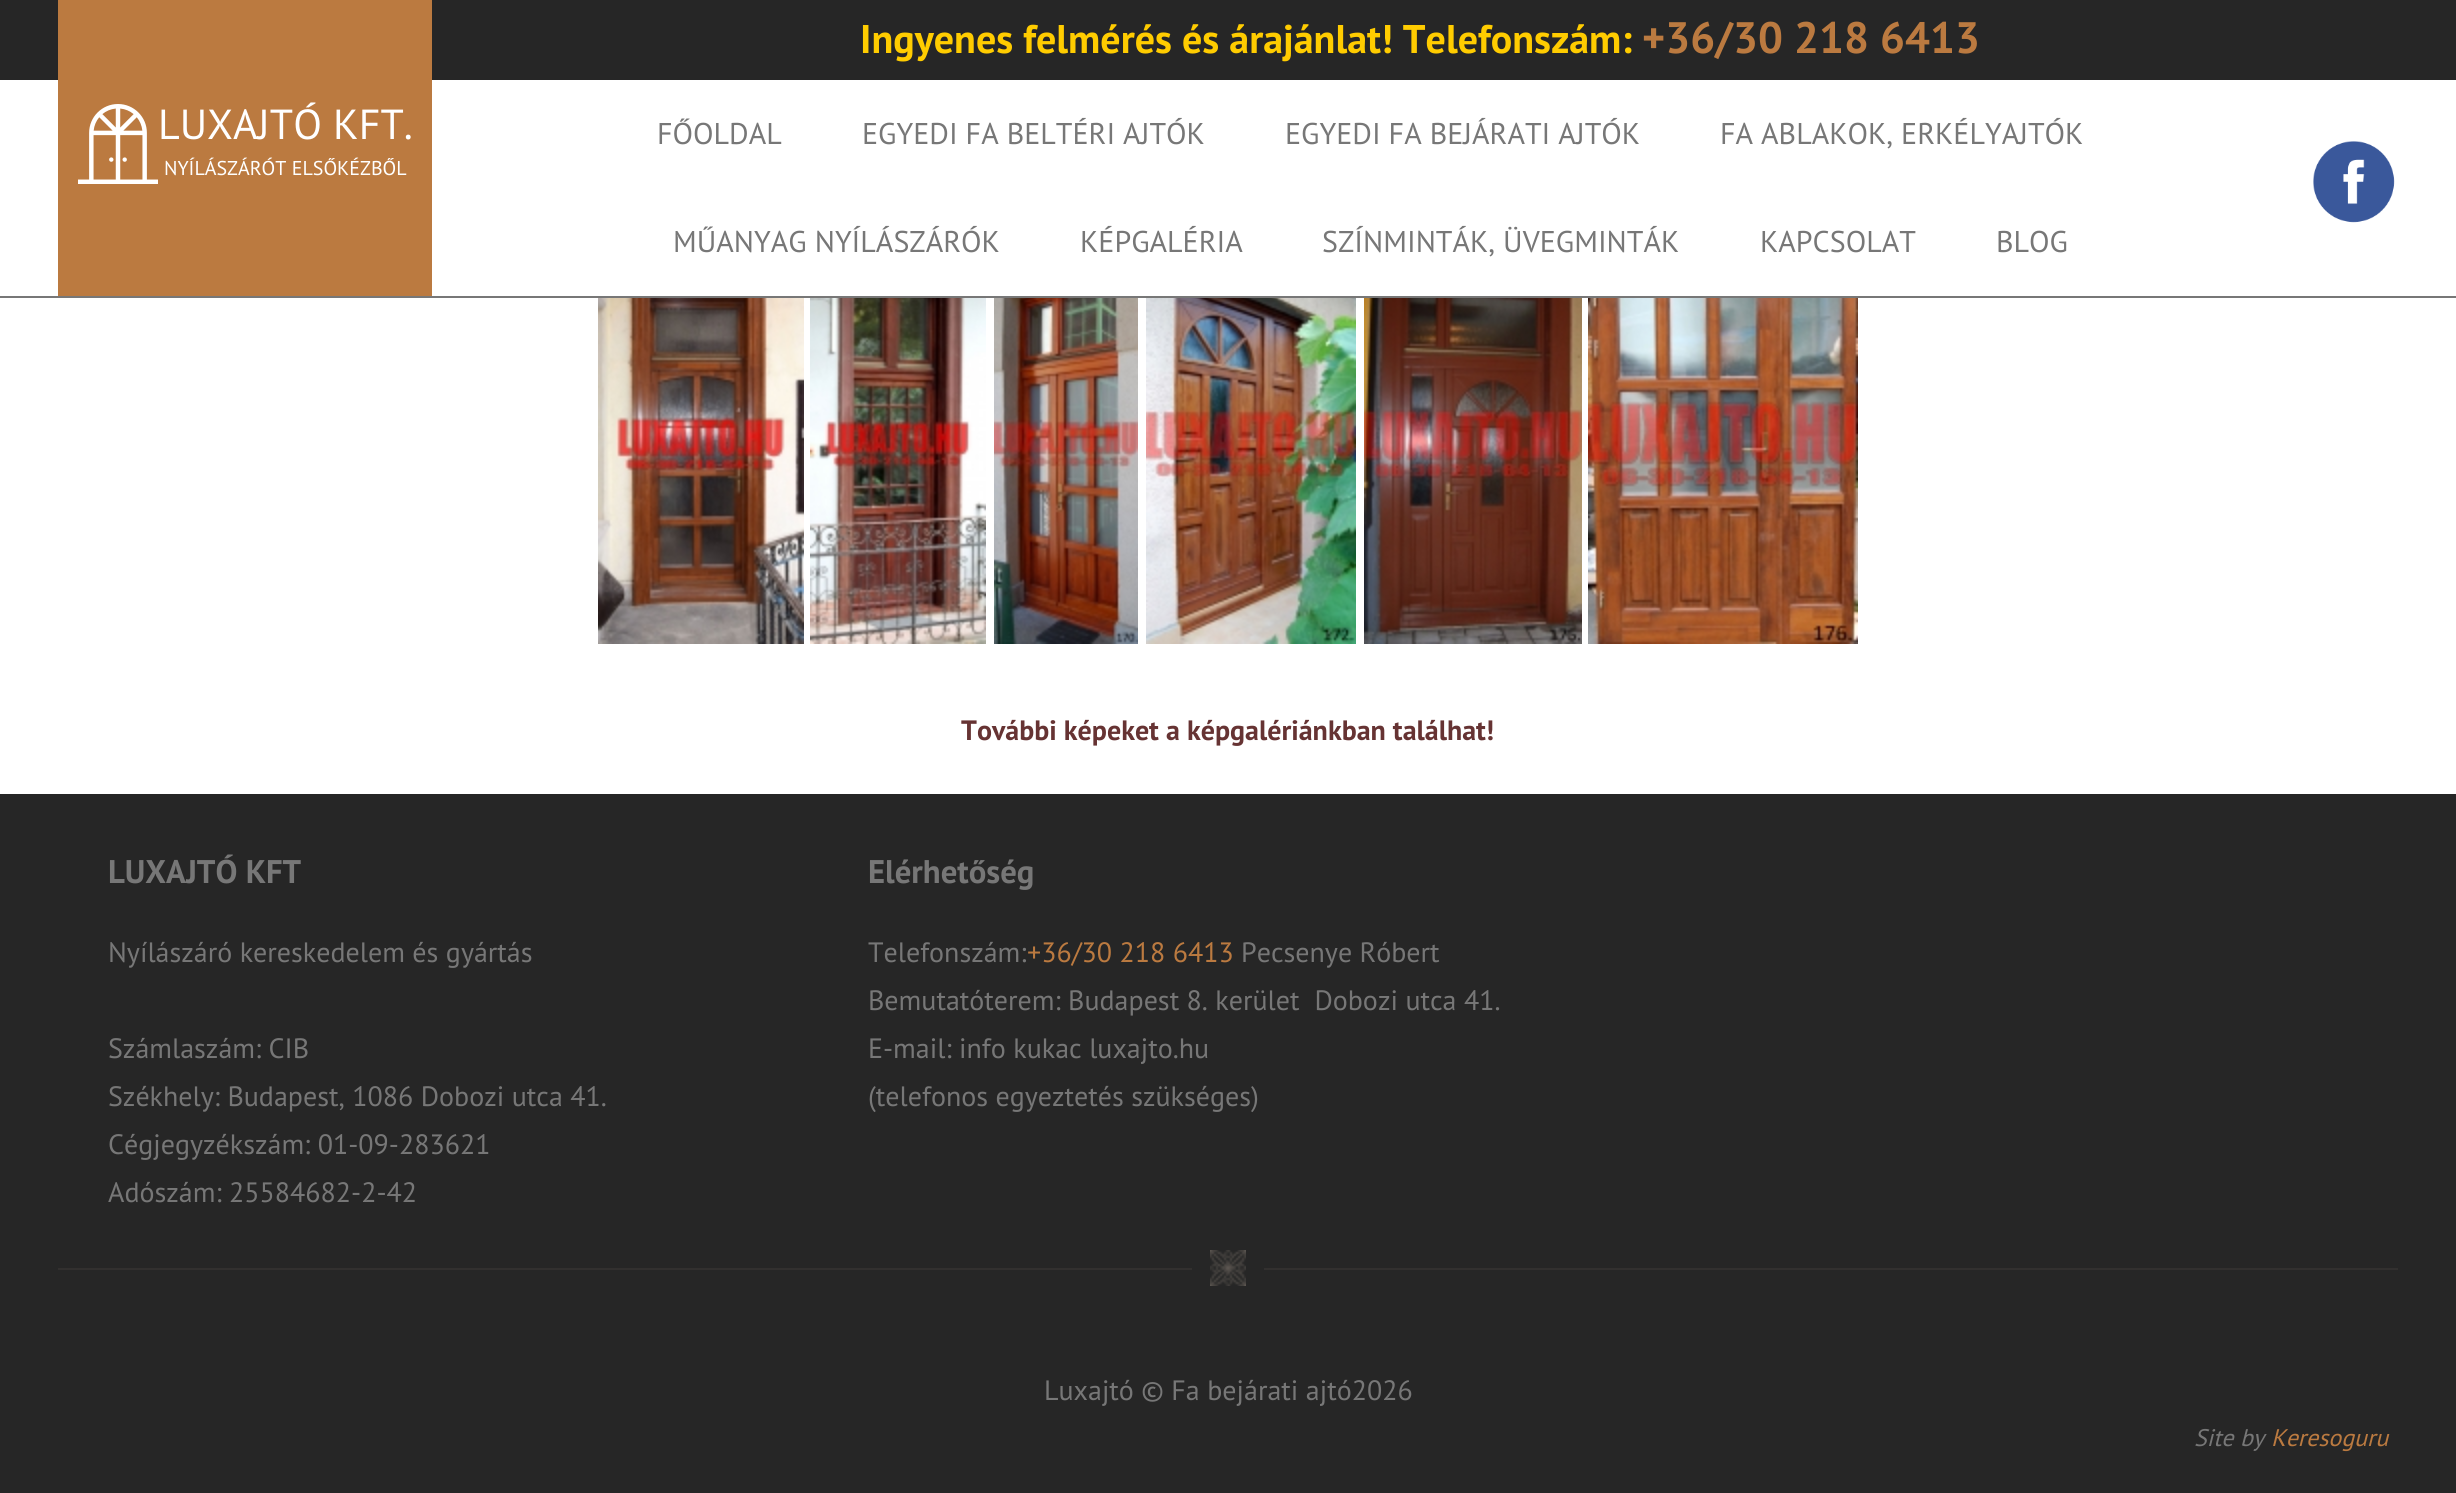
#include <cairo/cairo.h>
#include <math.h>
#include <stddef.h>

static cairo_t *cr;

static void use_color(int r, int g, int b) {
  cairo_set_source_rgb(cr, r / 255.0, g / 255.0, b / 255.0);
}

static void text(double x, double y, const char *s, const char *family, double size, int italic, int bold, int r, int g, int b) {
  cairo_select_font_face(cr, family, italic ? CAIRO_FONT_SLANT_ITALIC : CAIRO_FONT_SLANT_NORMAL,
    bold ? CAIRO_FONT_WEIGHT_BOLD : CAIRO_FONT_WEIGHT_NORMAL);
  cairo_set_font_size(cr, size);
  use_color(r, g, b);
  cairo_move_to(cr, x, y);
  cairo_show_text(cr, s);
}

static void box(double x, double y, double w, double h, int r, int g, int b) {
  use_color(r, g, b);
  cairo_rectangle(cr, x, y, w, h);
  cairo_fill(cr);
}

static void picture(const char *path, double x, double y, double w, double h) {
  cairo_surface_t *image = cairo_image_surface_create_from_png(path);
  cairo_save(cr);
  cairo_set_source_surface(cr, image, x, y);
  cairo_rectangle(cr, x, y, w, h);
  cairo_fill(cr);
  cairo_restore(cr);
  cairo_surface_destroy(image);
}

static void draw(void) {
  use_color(255, 255, 255);
  cairo_paint(cr);
  box(0, 296, 2456, 2, 119, 119, 119);
  box(0, 0, 2456, 80, 38, 38, 38);
  box(58, 0, 374, 296, 187, 122, 64);
  picture("img_01.png", 78, 104, 80, 80);
  picture("img_02.png", 2313, 141, 82, 82);
  picture("img_03.png", 598, 298, 206, 346);
  picture("img_04.png", 810, 298, 176, 346);
  picture("img_05.png", 994, 298, 144, 346);
  picture("img_06.png", 1146, 298, 210, 346);
  picture("img_07.png", 1364, 298, 218, 346);
  picture("img_08.png", 1588, 298, 270, 346);
  box(0, 794, 2456, 699, 38, 38, 38);
  picture("img_09.png", 1210, 1250, 36, 36);
  box(58, 1268, 1134, 2, 50, 48, 47);
  box(1264, 1268, 1134, 2, 50, 48, 47);
  text(158, 139, "LUXAJTÓ KFT.", "PT Sans", 42, 0, 0, 255, 255, 255);
  text(164, 175, "NYÍLÁSZÁRÓT ELSŐKÉZBŐL", "PT Sans", 20, 0, 0, 255, 255, 255);
  text(860, 53, "Ingyenes felmérés és árajánlat! Telefonszám:", "PT Sans", 40, 0, 1, 255, 204, 0);
  text(1642, 53, "+36/30 218 6413", "PT Sans", 44, 0, 1, 187, 122, 64);
  text(657, 144, "FŐOLDAL", "PT Sans", 30, 0, 0, 119, 119, 119);
  text(862, 144, "EGYEDI FA BELTÉRI AJTÓK", "PT Sans", 30, 0, 0, 119, 119, 119);
  text(1285, 144, "EGYEDI FA BEJÁRATI AJTÓK", "PT Sans", 30, 0, 0, 119, 119, 119);
  text(1720, 144, "FA ABLAKOK, ERKÉLYAJTÓK", "PT Sans", 30, 0, 0, 119, 119, 119);
  text(673, 252, "MŰANYAG NYÍLÁSZÁRÓK", "PT Sans", 30, 0, 0, 119, 119, 119);
  text(1080, 252, "KÉPGALÉRIA", "PT Sans", 30, 0, 0, 119, 119, 119);
  text(1322, 252, "SZÍNMINTÁK, ÜVEGMINTÁK", "PT Sans", 30, 0, 0, 119, 119, 119);
  text(1760, 252, "KAPCSOLAT", "PT Sans", 30, 0, 0, 119, 119, 119);
  text(1996, 252, "BLOG", "PT Sans", 30, 0, 0, 119, 119, 119);
  text(961, 740, "További képeket a képgalériánkban találhat!", "PT Sans", 28, 0, 1, 102, 51, 51);
  text(108, 883, "LUXAJTÓ KFT", "PT Sans", 32.75, 0, 1, 119, 119, 119);
  text(108, 962, "Nyílászáró kereskedelem és gyártás", "PT Sans", 28, 0, 0, 119, 119, 119);
  text(108, 1058, "Számlaszám: CIB", "PT Sans", 28, 0, 0, 119, 119, 119);
  text(108, 1106, "Székhely: Budapest, 1086 Dobozi utca 41.", "PT Sans", 28, 0, 0, 119, 119, 119);
  text(108, 1154, "Cégjegyzékszám: 01-09-283621", "PT Sans", 28, 0, 0, 119, 119, 119);
  text(108, 1202, "Adószám: 25584682-2-42", "PT Sans", 28, 0, 0, 119, 119, 119);
  text(868, 883, "Elérhetőség", "PT Sans", 32.75, 0, 1, 119, 119, 119);
  text(868, 962, "Telefonszám:", "PT Sans", 28, 0, 0, 119, 119, 119);
  text(1027, 962, "+36/30 218 6413", "PT Sans", 28, 0, 0, 187, 122, 64);
  text(1241, 962, "Pecsenye Róbert", "PT Sans", 28, 0, 0, 119, 119, 119);
  text(868, 1010, "Bemutatóterem: Budapest 8. kerület  Dobozi utca 41.", "PT Sans", 28, 0, 0, 119, 119, 119);
  text(868, 1058, "E-mail: info kukac luxajto.hu", "PT Sans", 28, 0, 0, 119, 119, 119);
  text(868, 1106, "(telefonos egyeztetés szükséges)", "PT Sans", 28, 0, 0, 119, 119, 119);
  text(1044, 1400, "Luxajtó © Fa bejárati ajtó2026", "PT Sans", 28, 0, 0, 119, 119, 119);
  text(2194, 1446, "Site by", "PT Sans", 24, 1, 0, 119, 119, 119);
  text(2271, 1446, "Keresoguru", "PT Sans", 24, 1, 0, 187, 122, 64);
}

int main(void) {
  cairo_surface_t *surface = cairo_image_surface_create(CAIRO_FORMAT_RGB24, 2456, 1493);
  cr = cairo_create(surface);
  cairo_font_options_t *options = cairo_font_options_create();
  cairo_font_options_set_hint_metrics(options, CAIRO_HINT_METRICS_OFF);
  cairo_font_options_set_hint_style(options, CAIRO_HINT_STYLE_NONE);
  cairo_set_font_options(cr, options);
  cairo_set_miter_limit(cr, 4);
  draw();
  cairo_surface_write_to_png(surface, "out.png");
  cairo_font_options_destroy(options);
  cairo_destroy(cr);
  cairo_surface_destroy(surface);
  return 0;
}
